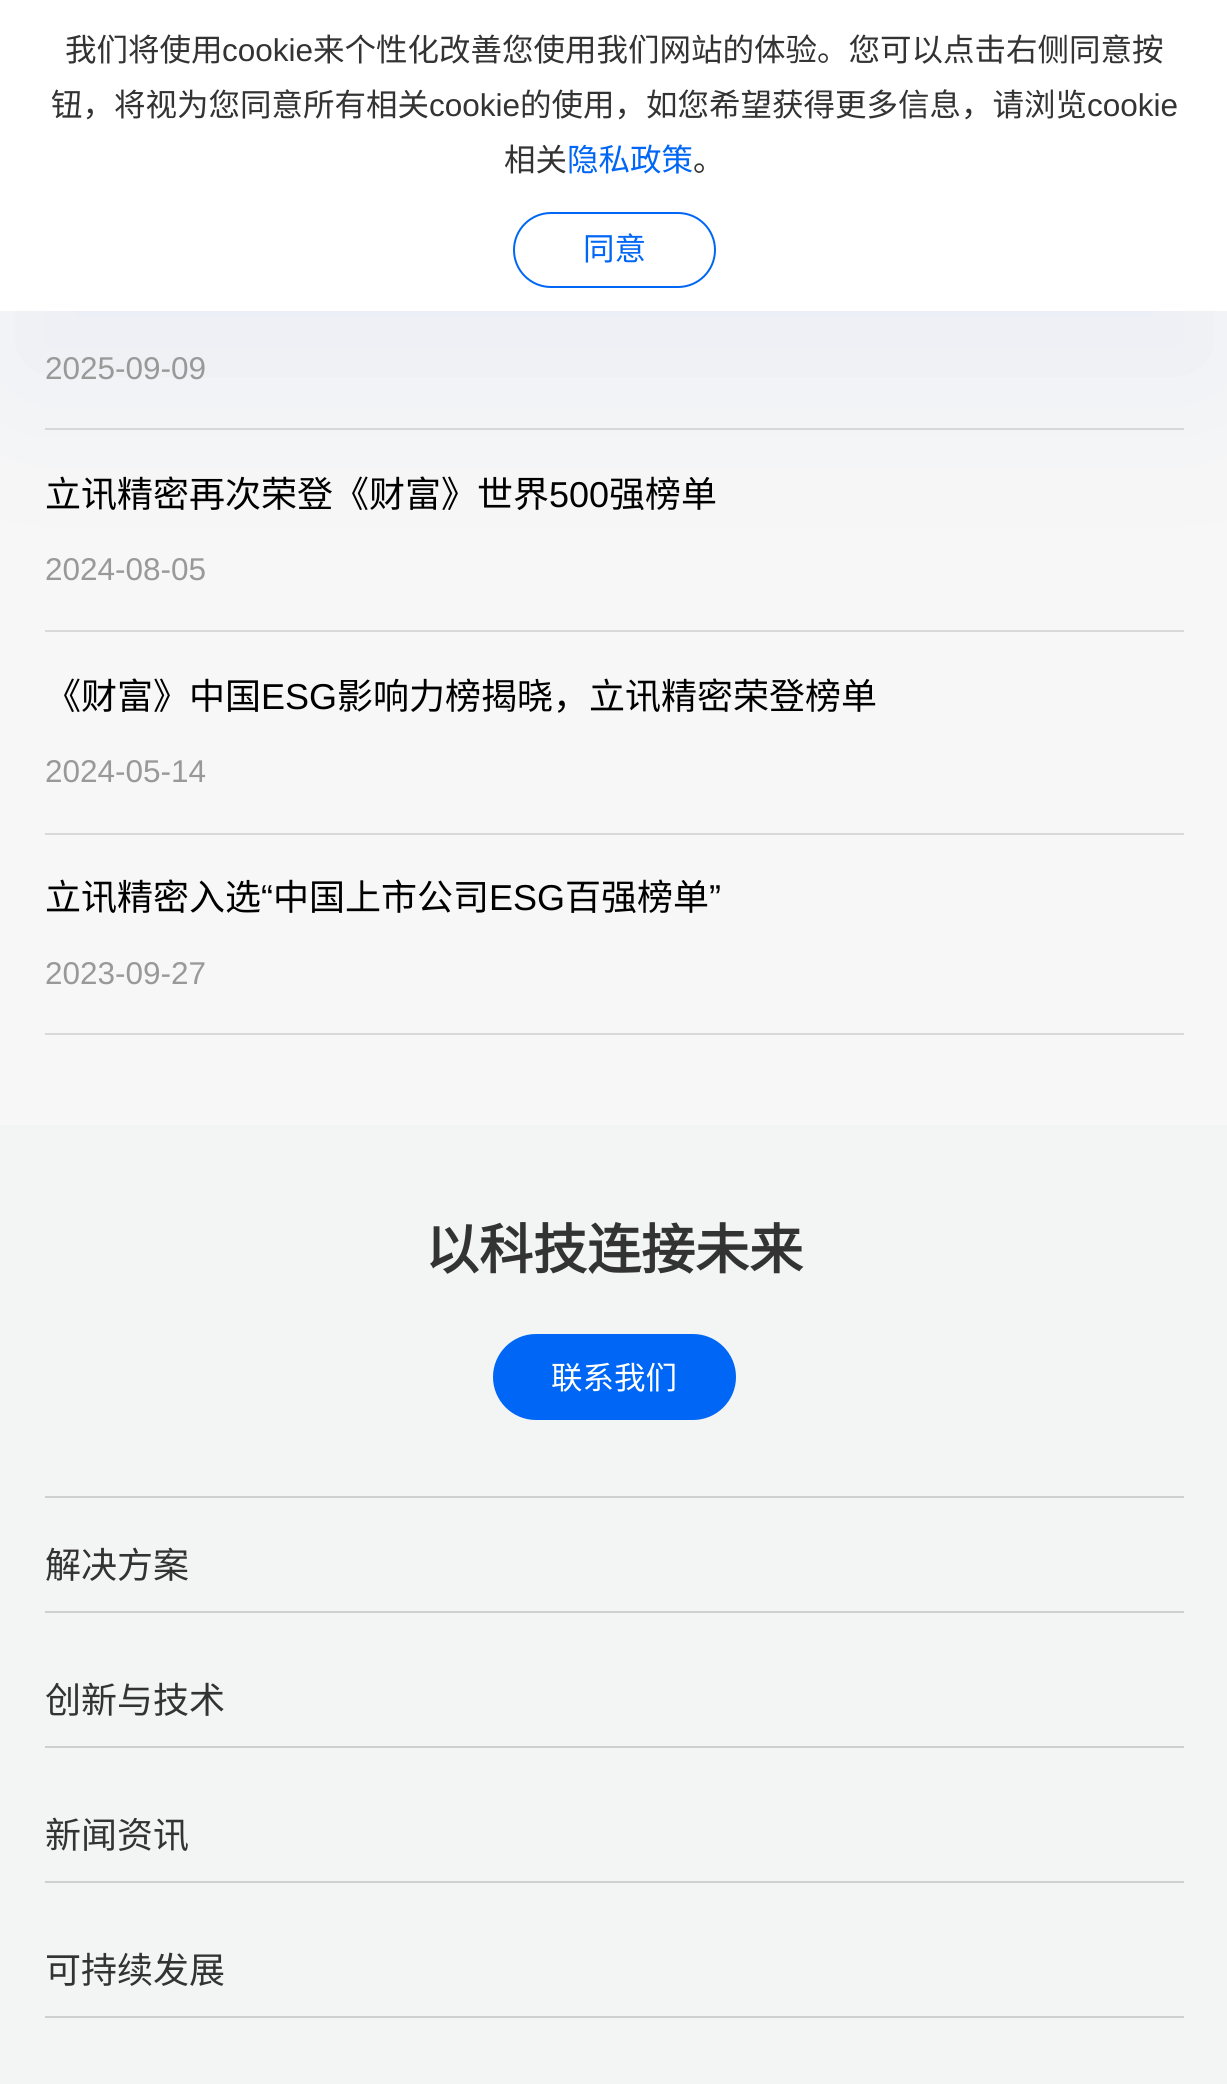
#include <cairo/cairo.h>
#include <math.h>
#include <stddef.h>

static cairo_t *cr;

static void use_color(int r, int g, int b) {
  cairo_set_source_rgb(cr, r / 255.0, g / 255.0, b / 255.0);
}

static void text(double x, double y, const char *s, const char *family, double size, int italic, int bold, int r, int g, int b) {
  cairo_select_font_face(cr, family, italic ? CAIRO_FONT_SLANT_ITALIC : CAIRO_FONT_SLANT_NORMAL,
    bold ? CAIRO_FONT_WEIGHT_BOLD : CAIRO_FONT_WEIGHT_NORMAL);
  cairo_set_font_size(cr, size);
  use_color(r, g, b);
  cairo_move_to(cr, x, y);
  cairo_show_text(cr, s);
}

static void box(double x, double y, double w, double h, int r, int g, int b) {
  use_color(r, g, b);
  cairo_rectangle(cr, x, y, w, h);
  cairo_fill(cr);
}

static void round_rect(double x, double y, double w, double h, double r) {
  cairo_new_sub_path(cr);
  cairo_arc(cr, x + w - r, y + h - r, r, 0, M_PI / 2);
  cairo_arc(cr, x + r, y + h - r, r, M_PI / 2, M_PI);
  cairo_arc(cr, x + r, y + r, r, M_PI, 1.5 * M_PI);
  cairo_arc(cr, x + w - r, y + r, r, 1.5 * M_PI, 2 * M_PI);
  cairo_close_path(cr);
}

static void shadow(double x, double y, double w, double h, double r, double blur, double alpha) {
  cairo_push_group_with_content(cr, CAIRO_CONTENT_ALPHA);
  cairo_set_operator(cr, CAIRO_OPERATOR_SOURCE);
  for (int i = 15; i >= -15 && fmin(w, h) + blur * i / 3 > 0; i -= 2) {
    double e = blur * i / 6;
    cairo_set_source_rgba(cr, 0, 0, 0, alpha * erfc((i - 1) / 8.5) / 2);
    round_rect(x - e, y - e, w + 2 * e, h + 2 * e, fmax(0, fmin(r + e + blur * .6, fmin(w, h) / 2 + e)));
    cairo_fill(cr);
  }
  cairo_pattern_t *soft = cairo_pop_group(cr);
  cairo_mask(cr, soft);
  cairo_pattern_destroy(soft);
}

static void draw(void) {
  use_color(247, 247, 247);
  cairo_paint(cr);
  box(45, 428, 1139, 2, 217, 217, 217);
  box(45, 630, 1139, 2, 217, 217, 217);
  use_color(73, 126, 218);
  shadow(0, 81, 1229, 311, 0, 90, 0.07);
  box(0, 0, 1227, 311, 255, 255, 255);
  round_rect(514, 213, 201, 74, 37);
  use_color(0, 102, 245);
  cairo_stroke(cr);
  box(45, 833, 1139, 2, 217, 217, 217);
  box(45, 1033, 1139, 2, 217, 217, 217);
  box(0, 1125, 1227, 959, 243, 244, 244);
  box(45, 1496, 1139, 2, 207, 207, 207);
  use_color(0, 102, 245);
  round_rect(494, 1335, 241, 84, 42);
  cairo_fill_preserve(cr);
  cairo_stroke(cr);
  box(45, 1611, 1139, 2, 207, 207, 207);
  box(45, 1746, 1139, 2, 207, 207, 207);
  box(45, 1881, 1139, 2, 207, 207, 207);
  box(45, 2016, 1139, 2, 207, 207, 207);
  text(65, 61, "我们将使用", "Noto Sans CJK SC", 31.5, 0, 0, 51, 51, 51);
  text(222, 61, "cookie", "Liberation Sans", 31.5, 0, 0, 51, 51, 51);
  text(313, 61, "来个性化改善您使用我们网站的体验。您可以点击右侧同意按", "Noto Sans CJK SC", 31.5, 0, 0, 51, 51, 51);
  text(51, 116, "钮，将视为您同意所有相关", "Noto Sans CJK SC", 31.5, 0, 0, 51, 51, 51);
  text(429, 116, "cookie", "Liberation Sans", 31.5, 0, 0, 51, 51, 51);
  text(520, 116, "的使用，如您希望获得更多信息，请浏览", "Noto Sans CJK SC", 31.5, 0, 0, 51, 51, 51);
  text(1087, 116, "cookie", "Liberation Sans", 31.5, 0, 0, 51, 51, 51);
  text(504, 171, "相关", "Noto Sans CJK SC", 31.5, 0, 0, 51, 51, 51);
  text(567, 171, "隐私政策", "Noto Sans CJK SC", 31.5, 0, 0, 0, 102, 245);
  text(693, 171, "。", "Noto Sans CJK SC", 31.5, 0, 0, 51, 51, 51);
  text(583, 260, "同意", "Noto Sans CJK SC", 31.5, 0, 0, 0, 102, 245);
  text(45, 379, "2025-09-09", "Liberation Sans", 31.5, 0, 0, 153, 153, 153);
  text(45, 507, "立讯精密再次荣登《财富》世界", "Noto Sans CJK SC", 36, 0, 0, 0, 0, 0);
  text(549, 507, "500", "Liberation Sans", 36, 0, 0, 0, 0, 0);
  text(609, 507, "强榜单", "Noto Sans CJK SC", 36, 0, 0, 0, 0, 0);
  text(45, 580, "2024-08-05", "Liberation Sans", 31.5, 0, 0, 153, 153, 153);
  text(45, 709, "《财富》中国", "Noto Sans CJK SC", 36, 0, 0, 0, 0, 0);
  text(261, 709, "ESG", "Liberation Sans", 36, 0, 0, 0, 0, 0);
  text(337, 709, "影响力榜揭晓，立讯精密荣登榜单", "Noto Sans CJK SC", 36, 0, 0, 0, 0, 0);
  text(45, 782, "2024-05-14", "Liberation Sans", 31.5, 0, 0, 153, 153, 153);
  text(45, 910, "立讯精密入选", "Noto Sans CJK SC", 36, 0, 0, 0, 0, 0);
  text(261, 910, "“", "Liberation Sans", 36, 0, 0, 0, 0, 0);
  text(273, 910, "中国上市公司", "Noto Sans CJK SC", 36, 0, 0, 0, 0, 0);
  text(489, 910, "ESG", "Liberation Sans", 36, 0, 0, 0, 0, 0);
  text(565, 910, "百强榜单", "Noto Sans CJK SC", 36, 0, 0, 0, 0, 0);
  text(709, 910, "”", "Liberation Sans", 36, 0, 0, 0, 0, 0);
  text(45, 984, "2023-09-27", "Liberation Sans", 31.5, 0, 0, 153, 153, 153);
  text(425, 1269, "以科技连接未来", "Noto Sans CJK SC", 54, 0, 1, 51, 51, 51);
  text(551, 1389, "联系我们", "Noto Sans CJK SC", 31.5, 0, 0, 255, 255, 255);
  text(45, 1578, "解决方案", "Noto Sans CJK SC", 36, 0, 0, 51, 51, 51);
  text(45, 1713, "创新与技术", "Noto Sans CJK SC", 36, 0, 0, 51, 51, 51);
  text(45, 1848, "新闻资讯", "Noto Sans CJK SC", 36, 0, 0, 51, 51, 51);
  text(45, 1983, "可持续发展", "Noto Sans CJK SC", 36, 0, 0, 51, 51, 51);
}

int main(void) {
  cairo_surface_t *surface = cairo_image_surface_create(CAIRO_FORMAT_RGB24, 1227, 2084);
  cr = cairo_create(surface);
  cairo_font_options_t *options = cairo_font_options_create();
  cairo_font_options_set_hint_metrics(options, CAIRO_HINT_METRICS_OFF);
  cairo_font_options_set_hint_style(options, CAIRO_HINT_STYLE_NONE);
  cairo_set_font_options(cr, options);
  cairo_set_miter_limit(cr, 4);
  draw();
  cairo_surface_write_to_png(surface, "out.png");
  cairo_font_options_destroy(options);
  cairo_destroy(cr);
  cairo_surface_destroy(surface);
  return 0;
}
